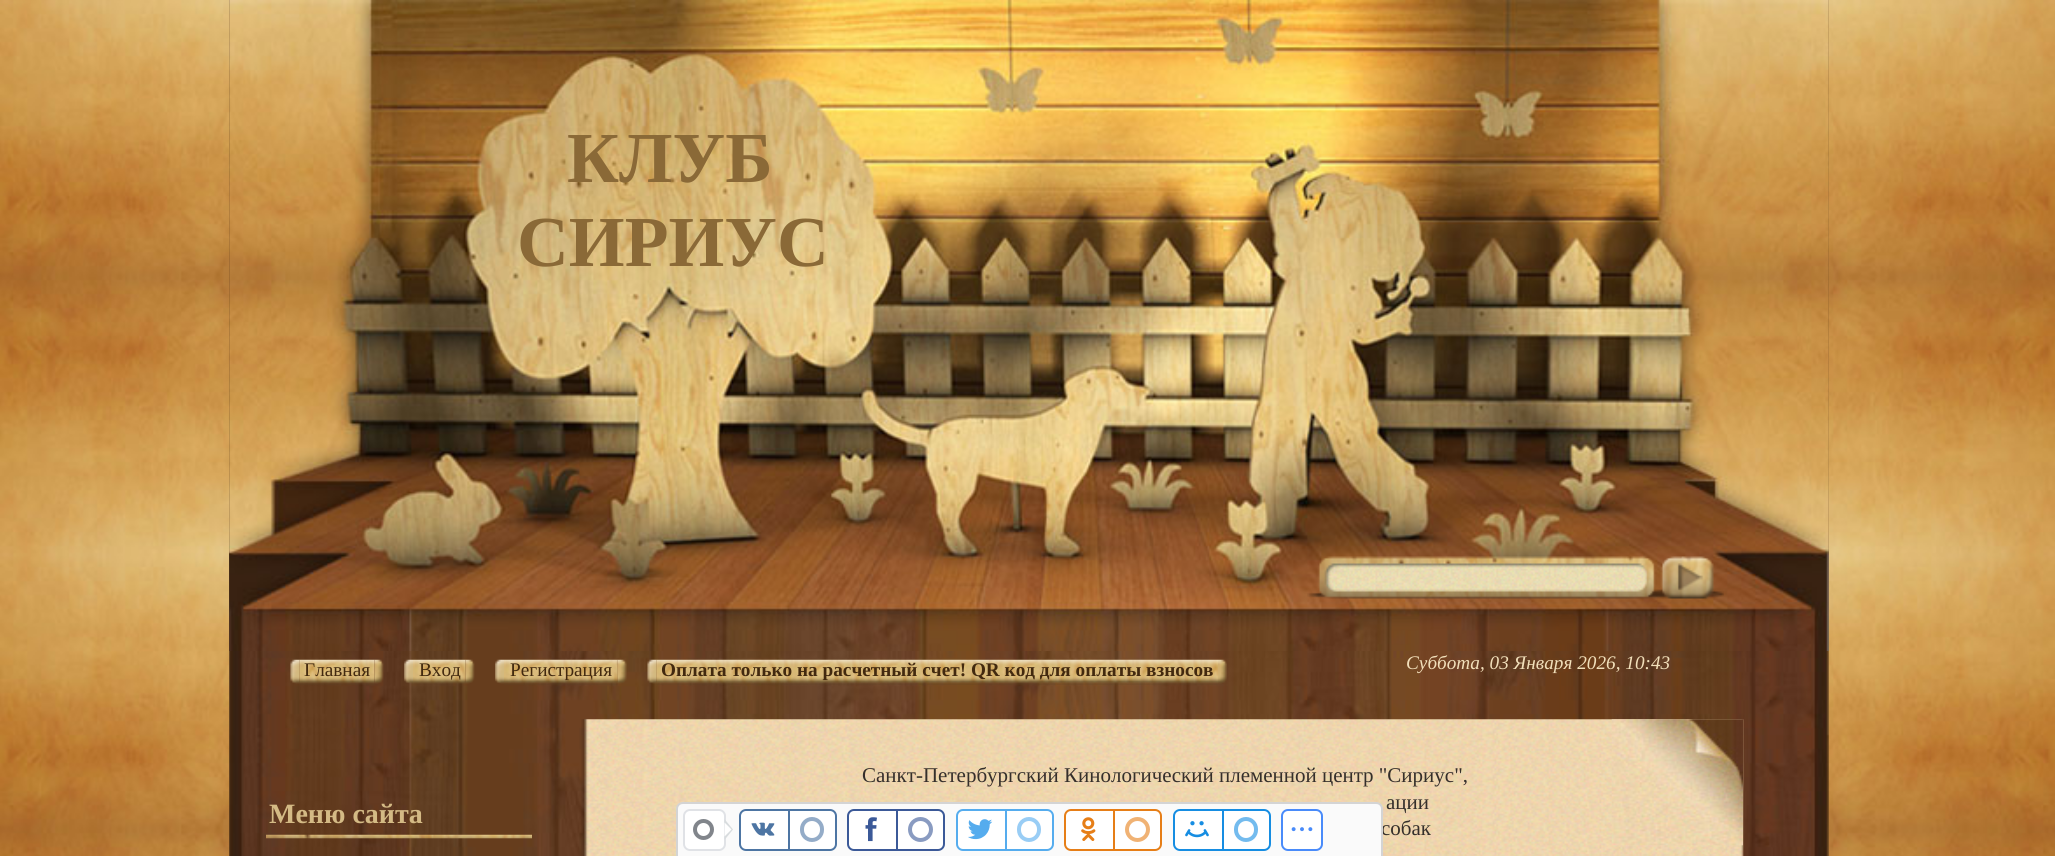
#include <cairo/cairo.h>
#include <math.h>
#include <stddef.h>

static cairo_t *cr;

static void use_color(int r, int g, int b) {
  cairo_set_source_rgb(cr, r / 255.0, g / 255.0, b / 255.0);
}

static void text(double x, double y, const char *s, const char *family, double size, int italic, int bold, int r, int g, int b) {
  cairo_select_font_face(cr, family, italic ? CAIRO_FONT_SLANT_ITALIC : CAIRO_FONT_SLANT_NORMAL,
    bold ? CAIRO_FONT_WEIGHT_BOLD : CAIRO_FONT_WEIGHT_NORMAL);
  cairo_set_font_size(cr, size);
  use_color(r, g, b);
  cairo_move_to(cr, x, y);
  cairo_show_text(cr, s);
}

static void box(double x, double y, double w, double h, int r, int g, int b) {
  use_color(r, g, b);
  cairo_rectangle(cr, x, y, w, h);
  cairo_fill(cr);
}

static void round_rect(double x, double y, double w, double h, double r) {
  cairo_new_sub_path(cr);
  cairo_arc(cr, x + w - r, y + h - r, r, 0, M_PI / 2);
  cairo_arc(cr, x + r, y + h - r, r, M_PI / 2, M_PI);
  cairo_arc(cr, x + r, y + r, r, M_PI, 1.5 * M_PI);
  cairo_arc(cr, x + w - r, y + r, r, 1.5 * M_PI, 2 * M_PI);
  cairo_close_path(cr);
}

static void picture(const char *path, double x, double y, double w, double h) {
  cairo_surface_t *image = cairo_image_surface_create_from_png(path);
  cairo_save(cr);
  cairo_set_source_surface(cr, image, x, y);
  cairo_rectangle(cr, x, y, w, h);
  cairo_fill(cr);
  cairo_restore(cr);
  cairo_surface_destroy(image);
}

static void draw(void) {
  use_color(255, 255, 255);
  cairo_paint(cr);
  picture("img_01.png", 0, 0, 2055, 856);
  picture("img_02.png", 229, 0, 1600, 856);
  picture("img_03.png", 229, 0, 1600, 651);
  picture("img_04.png", 1307, 556, 417, 43);
  picture("img_06.png", 299, 659, 76, 26);
  picture("img_05.png", 290, 659, 10, 25);
  picture("img_07.png", 374, 659, 10, 25);
  picture("img_08.png", 404, 659, 9, 25);
  picture("img_09.png", 413, 659, 53, 25);
  picture("img_10.png", 465, 659, 10, 25);
  picture("img_11.png", 495, 659, 9, 25);
  picture("img_12.png", 504, 659, 114, 26);
  picture("img_13.png", 617, 659, 10, 25);
  picture("img_15.png", 656, 659, 562, 26);
  picture("img_14.png", 647, 659, 10, 25);
  picture("img_16.png", 1218, 659, 9, 25);
  picture("img_17.png", 581, 719, 1163, 137);
  picture("img_18.png", 266, 834, 266, 5);
  picture("img_19.png", 1611, 719, 132, 127);
  text(567, 182, "КЛУБ", "Liberation Serif", 71.75, 0, 1, 138, 105, 55);
  text(517, 266, "СИРИУС", "Liberation Serif", 71.75, 0, 1, 138, 105, 55);
  text(304, 676, "Главная", "Liberation Serif", 19.25, 0, 0, 66, 41, 15);
  text(419, 676, "Вход", "Liberation Serif", 19.25, 0, 0, 66, 41, 15);
  text(510, 676, "Регистрация", "Liberation Serif", 19.25, 0, 0, 66, 41, 15);
  text(661, 676, "Оплата только на расчетный счет! QR код для оплаты взносов", "Liberation Serif", 19.25, 0, 1, 66, 41, 15);
  text(1406, 669, "Суббота, 03 Января 2026, 10:43", "Liberation Serif", 19.25, 1, 0, 241, 223, 186);
  text(269, 823, "Меню сайта", "Liberation Serif", 28, 0, 1, 212, 186, 133);
  text(862, 782, "Санкт-Петербургский Кинологический племенной центр \"Сириус\",", "Liberation Serif", 21, 0, 0, 53, 47, 43);
  text(1386, 809, "ации", "Liberation Serif", 21, 0, 0, 53, 47, 43);
  text(1381, 835, "собак", "Liberation Serif", 21, 0, 0, 53, 47, 43);
  use_color(250, 250, 250);
  cairo_new_path(cr);
  cairo_move_to(cr, 683, 803);
  cairo_line_to(cr, 1376, 803);
  cairo_curve_to(cr, 1379.5, 803, 1382, 805.5, 1382, 809);
  cairo_line_to(cr, 1382, 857);
  cairo_line_to(cr, 677, 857);
  cairo_line_to(cr, 677, 809);
  cairo_curve_to(cr, 677, 805.5, 679.5, 803, 683, 803);
  cairo_close_path(cr);
  cairo_fill_preserve(cr);
  use_color(212, 212, 212);
  cairo_stroke(cr);
  use_color(255, 255, 255);
  round_rect(684, 810, 41, 40, 6);
  cairo_fill_preserve(cr);
  use_color(224, 226, 230);
  cairo_stroke(cr);
  cairo_arc(cr, 703.5, 829.5, 8.5, 0, 2 * M_PI);
  use_color(129, 133, 139);
  cairo_set_line_width(cr, 4);
  cairo_stroke(cr);
  use_color(216, 220, 222);
  cairo_new_path(cr);
  cairo_move_to(cr, 724.5, 840);
  cairo_line_to(cr, 724.5, 819);
  cairo_line_to(cr, 733, 829.5);
  cairo_close_path(cr);
  cairo_fill(cr);
  use_color(255, 255, 255);
  cairo_new_path(cr);
  cairo_move_to(cr, 724.5, 836.5);
  cairo_line_to(cr, 724.5, 822.5);
  cairo_line_to(cr, 731.5, 829.5);
  cairo_close_path(cr);
  cairo_fill(cr);
  round_rect(740, 810, 96, 40, 6);
  cairo_fill_preserve(cr);
  use_color(77, 117, 163);
  cairo_set_line_width(cr, 2);
  cairo_stroke(cr);
  picture("img_20.png", 751, 822, 24, 14);
  box(788, 810, 2, 39, 77, 117, 163);
  round_rect(802, 819, 20, 21, 10);
  use_color(148, 172, 200);
  cairo_set_line_width(cr, 4);
  cairo_stroke(cr);
  use_color(255, 255, 255);
  round_rect(848, 810, 96, 40, 6);
  cairo_fill_preserve(cr);
  use_color(59, 89, 152);
  cairo_set_line_width(cr, 2);
  cairo_stroke(cr);
  picture("img_21.png", 865, 817, 12, 25);
  box(896, 810, 2, 39, 59, 89, 152);
  cairo_arc(cr, 920.5, 829.5, 10.5, 0, 2 * M_PI);
  use_color(137, 155, 193);
  cairo_set_line_width(cr, 4);
  cairo_stroke(cr);
  use_color(255, 255, 255);
  round_rect(957, 810, 96, 40, 6);
  cairo_fill_preserve(cr);
  use_color(85, 172, 238);
  cairo_set_line_width(cr, 2);
  cairo_stroke(cr);
  picture("img_22.png", 968, 819, 25, 21);
  box(1005, 810, 2, 39, 85, 172, 238);
  round_rect(1019, 819, 20, 21, 10);
  use_color(153, 205, 245);
  cairo_set_line_width(cr, 4);
  cairo_stroke(cr);
  use_color(255, 255, 255);
  round_rect(1065, 810, 96, 40, 6);
  cairo_fill_preserve(cr);
  use_color(230, 126, 23);
  cairo_set_line_width(cr, 2);
  cairo_stroke(cr);
  picture("img_23.png", 1081, 817, 15, 24);
  box(1113, 810, 2, 39, 230, 126, 23);
  cairo_arc(cr, 1137.5, 829.5, 10.5, 0, 2 * M_PI);
  use_color(240, 178, 116);
  cairo_set_line_width(cr, 4);
  cairo_stroke(cr);
  use_color(255, 255, 255);
  round_rect(1174, 810, 96, 40, 6);
  cairo_fill_preserve(cr);
  use_color(22, 141, 226);
  cairo_set_line_width(cr, 2);
  cairo_stroke(cr);
  picture("img_24.png", 1185, 821, 24, 17);
  box(1222, 810, 2, 39, 22, 141, 226);
  round_rect(1236, 819, 20, 21, 10);
  use_color(115, 187, 238);
  cairo_set_line_width(cr, 4);
  cairo_stroke(cr);
  use_color(255, 255, 255);
  round_rect(1282, 810, 40, 40, 6);
  cairo_fill_preserve(cr);
  use_color(73, 139, 250);
  cairo_set_line_width(cr, 2);
  cairo_stroke(cr);
  picture("img_25.png", 1291, 827, 22, 5);
}

int main(void) {
  cairo_surface_t *surface = cairo_image_surface_create(CAIRO_FORMAT_RGB24, 2055, 856);
  cr = cairo_create(surface);
  cairo_font_options_t *options = cairo_font_options_create();
  cairo_font_options_set_hint_metrics(options, CAIRO_HINT_METRICS_OFF);
  cairo_font_options_set_hint_style(options, CAIRO_HINT_STYLE_NONE);
  cairo_set_font_options(cr, options);
  cairo_set_miter_limit(cr, 4);
  draw();
  cairo_surface_write_to_png(surface, "out.png");
  cairo_font_options_destroy(options);
  cairo_destroy(cr);
  cairo_surface_destroy(surface);
  return 0;
}
